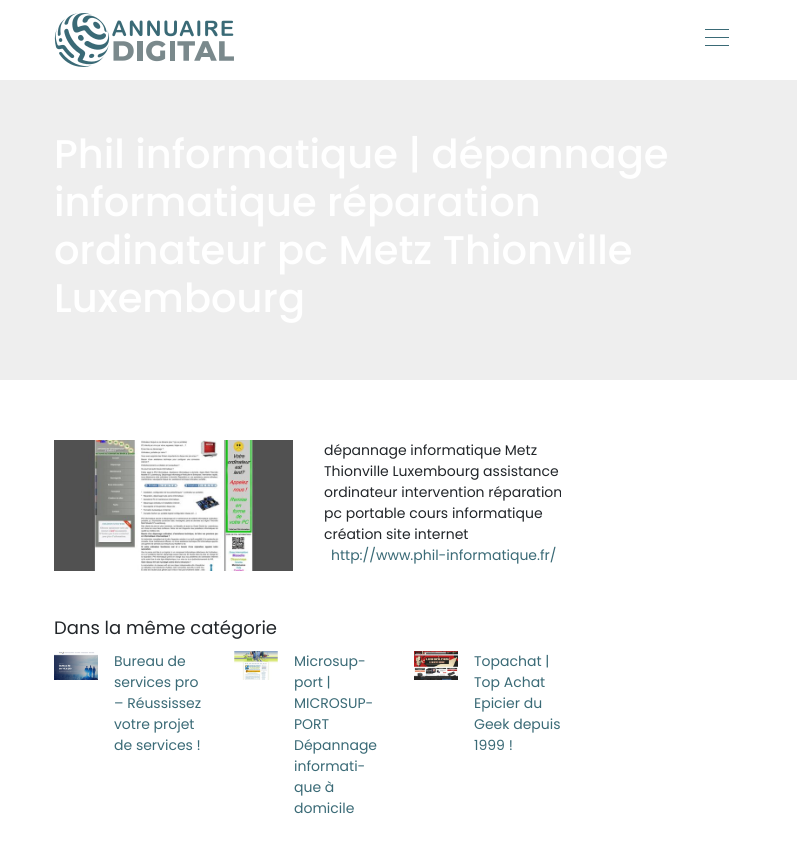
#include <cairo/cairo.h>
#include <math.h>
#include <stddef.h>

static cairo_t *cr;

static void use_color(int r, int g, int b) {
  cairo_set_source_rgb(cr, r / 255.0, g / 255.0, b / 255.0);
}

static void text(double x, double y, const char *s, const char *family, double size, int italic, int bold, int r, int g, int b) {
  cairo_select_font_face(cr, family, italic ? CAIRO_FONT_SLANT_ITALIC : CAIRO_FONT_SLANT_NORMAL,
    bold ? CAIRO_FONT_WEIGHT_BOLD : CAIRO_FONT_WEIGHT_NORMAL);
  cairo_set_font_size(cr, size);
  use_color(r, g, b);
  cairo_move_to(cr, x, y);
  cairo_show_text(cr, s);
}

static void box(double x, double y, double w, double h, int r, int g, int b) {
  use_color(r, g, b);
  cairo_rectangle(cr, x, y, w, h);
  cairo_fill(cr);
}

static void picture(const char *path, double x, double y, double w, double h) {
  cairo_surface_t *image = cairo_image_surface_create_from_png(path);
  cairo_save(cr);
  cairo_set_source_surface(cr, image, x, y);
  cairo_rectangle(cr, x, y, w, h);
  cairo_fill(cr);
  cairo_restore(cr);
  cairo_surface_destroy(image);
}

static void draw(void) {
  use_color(255, 255, 255);
  cairo_paint(cr);
  picture("img_01.png", 54, 13, 180, 54);
  box(705, 29, 24, 1, 58, 106, 118);
  box(705, 37, 24, 1, 58, 106, 118);
  box(705, 45, 24, 1, 58, 106, 118);
  box(0, 80, 797, 300, 238, 238, 238);
  picture("img_02.png", 54, 440, 239, 131);
  picture("img_03.png", 54, 651, 44, 29);
  picture("img_04.png", 234, 651, 44, 29);
  picture("img_05.png", 414, 651, 44, 29);
  text(54, 168, "Phil informatique | dépannage", "Poppins Medium", 40, 0, 0, 255, 255, 255);
  text(54, 216, "informatique réparation", "Poppins Medium", 40, 0, 0, 255, 255, 255);
  text(54, 264, "ordinateur pc Metz Thionville", "Poppins Medium", 40, 0, 0, 255, 255, 255);
  text(54, 312, "Luxembourg", "Poppins Medium", 40, 0, 0, 255, 255, 255);
  text(324, 455, "dépannage informatique Metz", "Poppins", 14, 0, 0, 33, 37, 41);
  text(324, 476, "Thionville Luxembourg assistance", "Poppins", 14, 0, 0, 33, 37, 41);
  text(324, 497, "ordinateur intervention réparation", "Poppins", 14, 0, 0, 33, 37, 41);
  text(324, 518, "pc portable cours informatique", "Poppins", 14, 0, 0, 33, 37, 41);
  text(324, 539, "création site internet", "Poppins", 14, 0, 0, 33, 37, 41);
  text(331, 560, "http://www.phil-informatique.fr/", "Poppins", 14, 0, 0, 58, 106, 118);
  text(54, 634, "Dans la même catégorie", "Poppins", 18, 0, 0, 33, 37, 41);
  text(114, 666, "Bureau de", "Poppins", 14, 0, 0, 58, 106, 118);
  text(114, 687, "services pro", "Poppins", 14, 0, 0, 58, 106, 118);
  text(114, 708, "– Réussissez", "Poppins", 14, 0, 0, 58, 106, 118);
  text(114, 729, "votre projet", "Poppins", 14, 0, 0, 58, 106, 118);
  text(114, 750, "de services !", "Poppins", 14, 0, 0, 58, 106, 118);
  text(294, 666, "Microsup-", "Poppins", 14, 0, 0, 58, 106, 118);
  text(294, 687, "port |", "Poppins", 14, 0, 0, 58, 106, 118);
  text(294, 708, "MICROSUP-", "Poppins", 14, 0, 0, 58, 106, 118);
  text(294, 729, "PORT", "Poppins", 14, 0, 0, 58, 106, 118);
  text(294, 750, "Dépannage", "Poppins", 14, 0, 0, 58, 106, 118);
  text(294, 771, "informati-", "Poppins", 14, 0, 0, 58, 106, 118);
  text(294, 792, "que à", "Poppins", 14, 0, 0, 58, 106, 118);
  text(294, 813, "domicile", "Poppins", 14, 0, 0, 58, 106, 118);
  text(474, 666, "Topachat |", "Poppins", 14, 0, 0, 58, 106, 118);
  text(474, 687, "Top Achat", "Poppins", 14, 0, 0, 58, 106, 118);
  text(474, 708, "Epicier du", "Poppins", 14, 0, 0, 58, 106, 118);
  text(474, 729, "Geek depuis", "Poppins", 14, 0, 0, 58, 106, 118);
  text(474, 750, "1999 !", "Poppins", 14, 0, 0, 58, 106, 118);
}

int main(void) {
  cairo_surface_t *surface = cairo_image_surface_create(CAIRO_FORMAT_RGB24, 797, 847);
  cr = cairo_create(surface);
  cairo_font_options_t *options = cairo_font_options_create();
  cairo_font_options_set_hint_metrics(options, CAIRO_HINT_METRICS_OFF);
  cairo_font_options_set_hint_style(options, CAIRO_HINT_STYLE_NONE);
  cairo_set_font_options(cr, options);
  cairo_set_miter_limit(cr, 4);
  draw();
  cairo_surface_write_to_png(surface, "out.png");
  cairo_font_options_destroy(options);
  cairo_destroy(cr);
  cairo_surface_destroy(surface);
  return 0;
}
